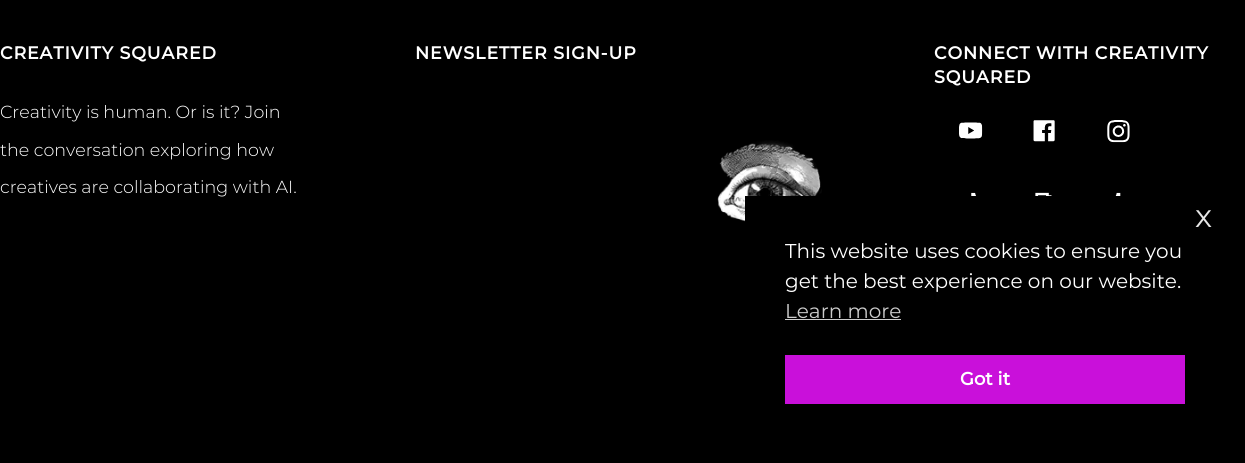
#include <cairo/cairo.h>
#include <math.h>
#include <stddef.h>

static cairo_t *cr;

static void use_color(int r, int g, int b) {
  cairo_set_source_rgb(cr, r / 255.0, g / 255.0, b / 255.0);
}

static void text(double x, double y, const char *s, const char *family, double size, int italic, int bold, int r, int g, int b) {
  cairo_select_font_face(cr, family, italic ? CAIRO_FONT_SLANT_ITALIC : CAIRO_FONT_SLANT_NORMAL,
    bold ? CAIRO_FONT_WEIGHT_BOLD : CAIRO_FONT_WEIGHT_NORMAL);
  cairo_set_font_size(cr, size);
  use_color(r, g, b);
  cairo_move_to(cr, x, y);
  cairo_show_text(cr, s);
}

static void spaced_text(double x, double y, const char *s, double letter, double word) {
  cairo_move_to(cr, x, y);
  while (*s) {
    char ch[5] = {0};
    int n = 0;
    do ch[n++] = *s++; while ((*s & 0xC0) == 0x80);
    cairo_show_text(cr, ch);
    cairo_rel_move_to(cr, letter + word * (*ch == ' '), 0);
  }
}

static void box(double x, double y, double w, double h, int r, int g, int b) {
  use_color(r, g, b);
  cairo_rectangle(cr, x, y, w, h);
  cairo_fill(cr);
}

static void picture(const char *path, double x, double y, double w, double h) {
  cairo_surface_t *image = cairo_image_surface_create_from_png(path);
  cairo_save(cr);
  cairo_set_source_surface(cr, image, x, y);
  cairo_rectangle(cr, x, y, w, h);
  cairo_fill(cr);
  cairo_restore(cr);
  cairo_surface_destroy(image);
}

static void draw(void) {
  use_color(0, 0, 0);
  cairo_paint(cr);
  picture("img_01.png", 717, 140, 105, 82);
  picture("img_02.png", 959, 122, 24, 17);
  picture("img_03.png", 1033, 120, 22, 22);
  picture("img_04.png", 1107, 120, 23, 23);
  picture("img_05.png", 971, 192, 5, 4);
  picture("img_06.png", 1035, 192, 17, 4);
  picture("img_07.png", 1115, 192, 6, 4);
  box(745, 196, 71, 26, 0, 0, 0);
  box(785, 319, 116, 1, 204, 204, 204);
  box(785, 355, 400, 49, 201, 16, 218);
  cairo_select_font_face(cr, "Montserrat", CAIRO_FONT_SLANT_NORMAL, CAIRO_FONT_WEIGHT_BOLD);
  cairo_set_font_size(cr, 17.5);
  use_color(255, 255, 255);
  spaced_text(0, 59, "CREATIVITY SQUARED", 0.9, 0);
  text(0, 118, "Creativity is human. Or is it? Join", "Montserrat Light", 17.5, 0, 0, 255, 255, 255);
  text(0, 156, "the conversation exploring how", "Montserrat Light", 17.5, 0, 0, 255, 255, 255);
  text(0, 193, "creatives are collaborating with AI.", "Montserrat Light", 17.5, 0, 0, 255, 255, 255);
  cairo_select_font_face(cr, "Montserrat", CAIRO_FONT_SLANT_NORMAL, CAIRO_FONT_WEIGHT_BOLD);
  spaced_text(415, 59, "NEWSLETTER SIGN-UP", 0.9, 0);
  spaced_text(934, 59, "CONNECT WITH CREATIVITY", 0.9, 0);
  spaced_text(934, 83, "SQUARED", 0.9, 0);
  text(1195, 227, "x", "Montserrat", 32, 0, 0, 230, 230, 230);
  text(785, 258, "This website uses cookies to ensure you", "Montserrat", 20, 0, 0, 255, 255, 255);
  text(785, 288, "get the best experience on our website.", "Montserrat", 20, 0, 0, 255, 255, 255);
  text(785, 318, "Learn more", "Montserrat", 20, 0, 0, 204, 204, 204);
  text(960, 385, "Got it", "Montserrat", 18, 0, 1, 255, 255, 255);
}

int main(void) {
  cairo_surface_t *surface = cairo_image_surface_create(CAIRO_FORMAT_RGB24, 1245, 463);
  cr = cairo_create(surface);
  cairo_font_options_t *options = cairo_font_options_create();
  cairo_font_options_set_hint_metrics(options, CAIRO_HINT_METRICS_OFF);
  cairo_font_options_set_hint_style(options, CAIRO_HINT_STYLE_NONE);
  cairo_set_font_options(cr, options);
  cairo_set_miter_limit(cr, 4);
  draw();
  cairo_surface_write_to_png(surface, "out.png");
  cairo_font_options_destroy(options);
  cairo_destroy(cr);
  cairo_surface_destroy(surface);
  return 0;
}
